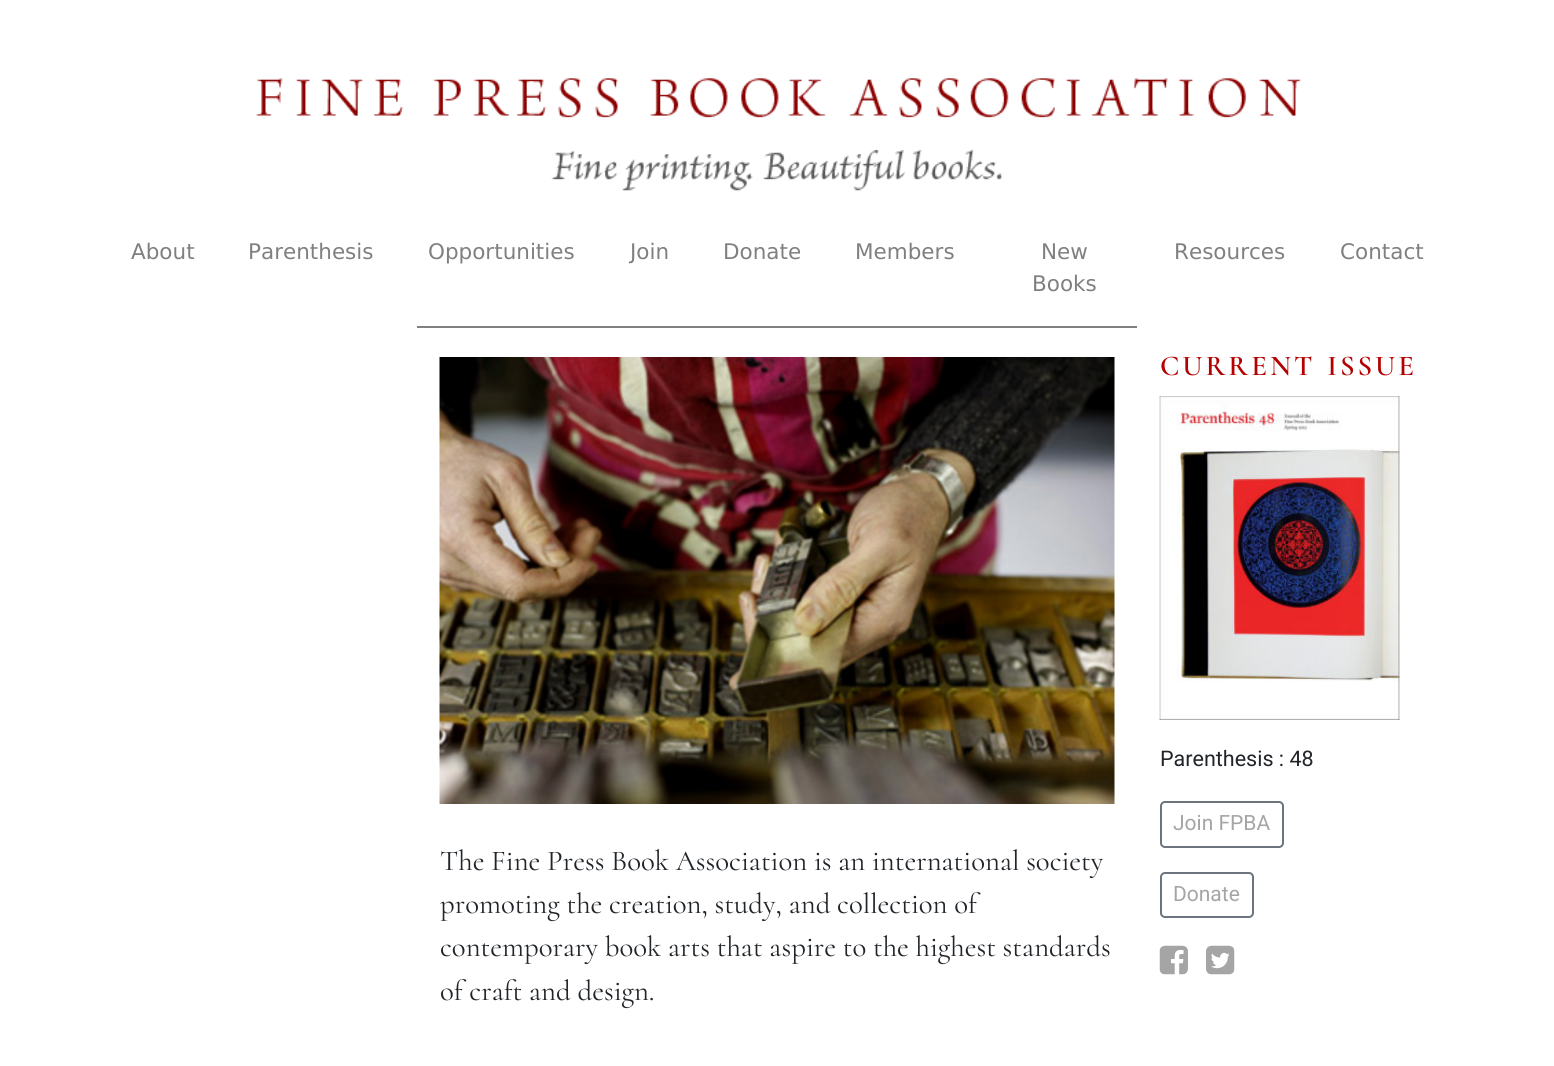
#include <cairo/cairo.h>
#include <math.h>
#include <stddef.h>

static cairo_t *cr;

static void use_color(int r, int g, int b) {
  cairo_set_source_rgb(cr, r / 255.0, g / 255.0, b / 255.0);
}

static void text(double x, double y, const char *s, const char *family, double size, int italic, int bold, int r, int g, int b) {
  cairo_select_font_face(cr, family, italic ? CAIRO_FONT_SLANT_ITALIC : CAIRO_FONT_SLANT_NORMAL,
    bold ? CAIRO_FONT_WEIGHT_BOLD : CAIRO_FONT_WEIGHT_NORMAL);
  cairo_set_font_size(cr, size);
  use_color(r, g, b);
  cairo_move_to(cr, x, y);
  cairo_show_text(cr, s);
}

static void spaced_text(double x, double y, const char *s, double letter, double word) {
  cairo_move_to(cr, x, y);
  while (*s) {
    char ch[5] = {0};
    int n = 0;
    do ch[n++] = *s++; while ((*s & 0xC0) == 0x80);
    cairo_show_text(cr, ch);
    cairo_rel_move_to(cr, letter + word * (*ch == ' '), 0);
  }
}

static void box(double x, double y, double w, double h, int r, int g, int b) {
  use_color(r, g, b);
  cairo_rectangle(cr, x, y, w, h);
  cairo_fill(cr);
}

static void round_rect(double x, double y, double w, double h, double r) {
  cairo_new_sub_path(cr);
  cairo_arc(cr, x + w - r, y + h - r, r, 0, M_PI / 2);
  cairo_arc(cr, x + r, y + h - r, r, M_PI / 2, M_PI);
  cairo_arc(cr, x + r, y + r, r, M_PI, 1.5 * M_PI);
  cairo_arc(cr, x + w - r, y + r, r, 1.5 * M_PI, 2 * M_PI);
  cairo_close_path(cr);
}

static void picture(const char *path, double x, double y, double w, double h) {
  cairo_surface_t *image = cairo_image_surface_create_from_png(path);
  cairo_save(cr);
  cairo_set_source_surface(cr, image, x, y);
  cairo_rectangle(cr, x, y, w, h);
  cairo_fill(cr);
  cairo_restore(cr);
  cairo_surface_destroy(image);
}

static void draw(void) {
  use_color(255, 255, 255);
  cairo_paint(cr);
  picture("img_01.png", 255, 78, 1046, 113);
  picture("img_02.png", 1159, 396, 241, 324);
  round_rect(1161, 802, 122, 45, 4);
  use_color(108, 117, 125);
  cairo_stroke(cr);
  round_rect(1161, 873, 92, 44, 4);
  cairo_stroke(cr);
  picture("img_03.png", 1159, 945, 29, 30);
  picture("img_04.png", 1206, 945, 29, 30);
  box(417, 326, 720, 2, 128, 128, 128);
  picture("img_05.png", 439, 357, 676, 447);
  text(131, 259, "About", "DejaVu Sans", 21.5, 0, 0, 128, 128, 128);
  text(248, 259, "Parenthesis", "DejaVu Sans", 21.5, 0, 0, 128, 128, 128);
  text(428, 259, "Opportunities", "DejaVu Sans", 21.5, 0, 0, 128, 128, 128);
  text(630, 259, "Join", "DejaVu Sans", 21.5, 0, 0, 128, 128, 128);
  text(723, 259, "Donate", "DejaVu Sans", 21.5, 0, 0, 128, 128, 128);
  text(855, 259, "Members", "DejaVu Sans", 21.5, 0, 0, 128, 128, 128);
  text(1041, 259, "New", "DejaVu Sans", 21.5, 0, 0, 128, 128, 128);
  text(1032, 291, "Books", "DejaVu Sans", 21.5, 0, 0, 128, 128, 128);
  text(1174, 259, "Resources", "DejaVu Sans", 21.5, 0, 0, 128, 128, 128);
  text(1340, 259, "Contact", "DejaVu Sans", 21.5, 0, 0, 128, 128, 128);
  cairo_select_font_face(cr, "Cormorant SemiBold", CAIRO_FONT_SLANT_NORMAL, CAIRO_FONT_WEIGHT_NORMAL);
  cairo_set_font_size(cr, 28.8);
  use_color(179, 0, 0);
  spaced_text(1160, 375, "CURRENT ISSUE", 3, 2);
  text(1160, 766, "Parenthesis : 48", "Roboto", 21.5, 0, 0, 33, 37, 41);
  text(1173, 830, "Join FPBA", "Roboto", 21, 0, 0, 165, 165, 165);
  text(1173, 901, "Donate", "Roboto", 21, 0, 0, 165, 165, 165);
  text(440, 870, "The Fine Press Book Association is an international society", "Cormorant", 28.8, 0, 0, 33, 37, 41);
  text(440, 913, "promoting the creation, study, and collection of", "Cormorant", 28.8, 0, 0, 33, 37, 41);
  text(440, 956, "contemporary book arts that aspire to the highest standards", "Cormorant", 28.8, 0, 0, 33, 37, 41);
  text(440, 1000, "of craft and design.", "Cormorant", 28.8, 0, 0, 33, 37, 41);
}

int main(void) {
  cairo_surface_t *surface = cairo_image_surface_create(CAIRO_FORMAT_RGB24, 1554, 1066);
  cr = cairo_create(surface);
  cairo_font_options_t *options = cairo_font_options_create();
  cairo_font_options_set_hint_metrics(options, CAIRO_HINT_METRICS_OFF);
  cairo_font_options_set_hint_style(options, CAIRO_HINT_STYLE_NONE);
  cairo_set_font_options(cr, options);
  cairo_set_miter_limit(cr, 4);
  draw();
  cairo_surface_write_to_png(surface, "out.png");
  cairo_font_options_destroy(options);
  cairo_destroy(cr);
  cairo_surface_destroy(surface);
  return 0;
}
